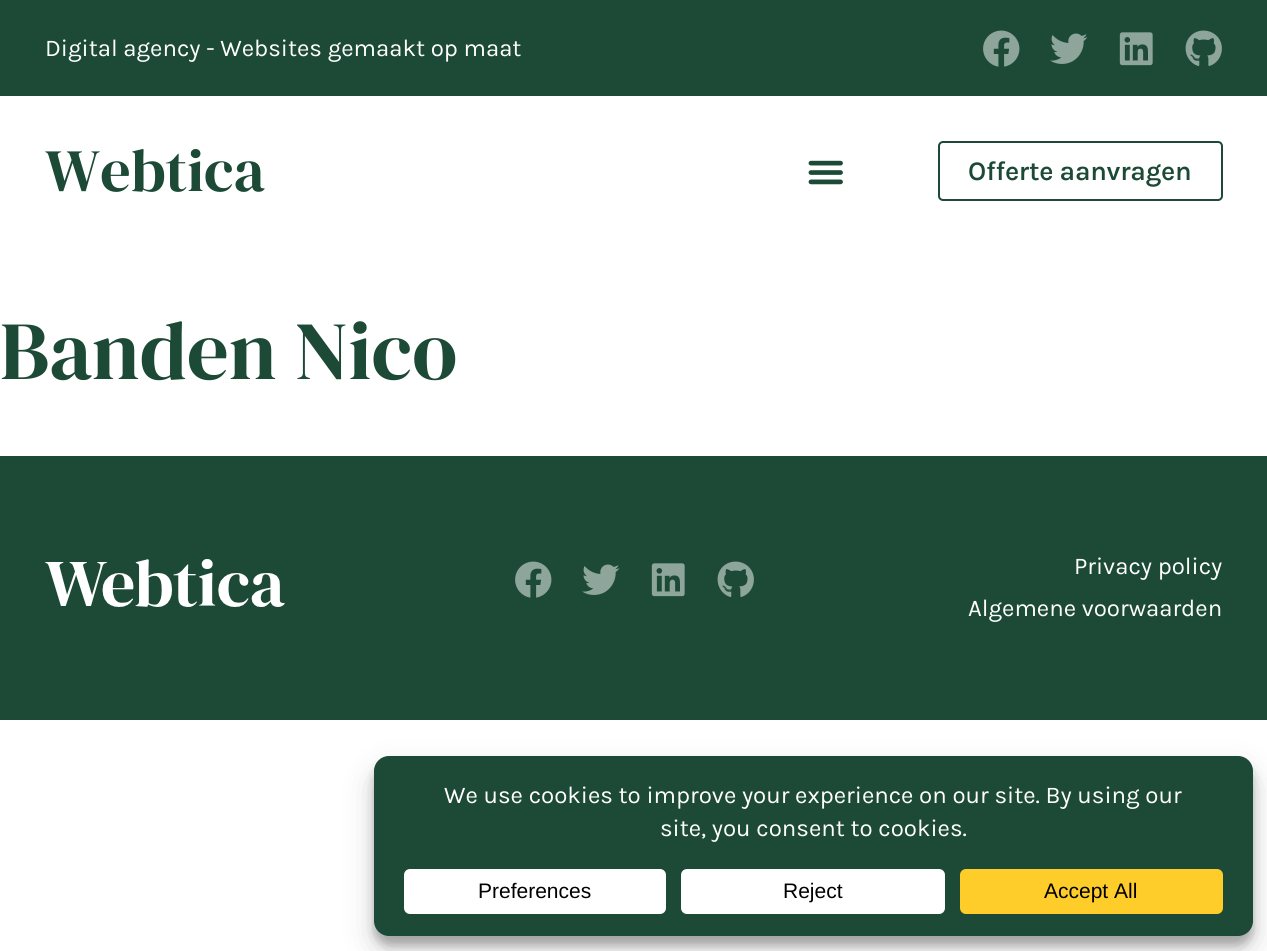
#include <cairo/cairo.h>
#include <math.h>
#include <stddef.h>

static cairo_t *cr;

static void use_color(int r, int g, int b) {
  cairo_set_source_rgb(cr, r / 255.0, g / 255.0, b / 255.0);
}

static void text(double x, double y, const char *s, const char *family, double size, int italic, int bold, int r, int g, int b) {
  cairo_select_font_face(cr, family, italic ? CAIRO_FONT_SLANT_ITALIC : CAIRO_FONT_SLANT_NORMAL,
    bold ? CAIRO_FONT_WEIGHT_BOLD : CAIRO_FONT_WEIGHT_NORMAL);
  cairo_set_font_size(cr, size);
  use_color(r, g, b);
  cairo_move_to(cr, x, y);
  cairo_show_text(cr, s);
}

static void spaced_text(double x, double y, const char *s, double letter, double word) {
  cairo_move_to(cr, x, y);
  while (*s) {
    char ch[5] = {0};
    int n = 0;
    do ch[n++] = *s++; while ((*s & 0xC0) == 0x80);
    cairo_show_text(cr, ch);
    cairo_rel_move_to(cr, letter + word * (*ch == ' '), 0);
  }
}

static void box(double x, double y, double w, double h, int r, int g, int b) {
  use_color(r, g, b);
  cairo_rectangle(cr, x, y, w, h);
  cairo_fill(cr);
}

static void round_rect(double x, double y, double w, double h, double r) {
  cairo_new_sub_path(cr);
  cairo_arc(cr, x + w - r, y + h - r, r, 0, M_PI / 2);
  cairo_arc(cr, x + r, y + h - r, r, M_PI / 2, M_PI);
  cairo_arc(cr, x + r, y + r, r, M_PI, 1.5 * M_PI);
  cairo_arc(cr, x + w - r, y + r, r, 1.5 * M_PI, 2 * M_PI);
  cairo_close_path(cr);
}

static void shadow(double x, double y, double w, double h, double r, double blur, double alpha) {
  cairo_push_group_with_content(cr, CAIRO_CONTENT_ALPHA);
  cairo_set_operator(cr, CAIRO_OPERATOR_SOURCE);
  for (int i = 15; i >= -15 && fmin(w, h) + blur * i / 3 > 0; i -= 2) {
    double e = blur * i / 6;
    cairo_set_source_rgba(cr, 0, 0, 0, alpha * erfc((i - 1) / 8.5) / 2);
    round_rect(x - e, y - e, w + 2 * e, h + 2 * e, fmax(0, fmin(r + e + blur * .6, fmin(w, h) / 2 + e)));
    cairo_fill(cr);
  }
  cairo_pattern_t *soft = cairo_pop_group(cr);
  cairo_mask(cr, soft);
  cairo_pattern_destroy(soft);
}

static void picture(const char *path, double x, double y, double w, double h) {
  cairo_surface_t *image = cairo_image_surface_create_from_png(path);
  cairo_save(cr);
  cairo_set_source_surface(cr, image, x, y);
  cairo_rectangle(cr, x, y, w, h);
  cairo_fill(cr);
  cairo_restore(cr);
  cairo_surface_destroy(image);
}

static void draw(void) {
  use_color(255, 255, 255);
  cairo_paint(cr);
  box(0, 0, 1267, 96, 28, 74, 54);
  picture("img_01.png", 983, 30, 37, 37);
  picture("img_02.png", 1050, 33, 38, 31);
  picture("img_03.png", 1119, 32, 34, 34);
  picture("img_04.png", 1185, 30, 37, 36);
  picture("img_05.png", 808, 160, 35, 25);
  round_rect(939, 142, 283, 58, 4);
  cairo_stroke(cr);
  box(0, 456, 1267, 264, 28, 74, 54);
  picture("img_06.png", 45, 559, 240, 48);
  picture("img_01.png", 515, 561, 37, 37);
  picture("img_02.png", 582, 564, 38, 31);
  picture("img_03.png", 651, 563, 34, 34);
  picture("img_04.png", 717, 561, 37, 36);
  use_color(0, 0, 0);
  shadow(374, 765, 879, 180, 15, 4.5, 0.23);
  shadow(374, 771, 879, 180, 15, 15, 0.19);
  use_color(28, 74, 54);
  round_rect(374, 756, 879, 180, 15);
  cairo_fill(cr);
  use_color(255, 255, 255);
  round_rect(404, 869, 262, 45, 6);
  cairo_fill(cr);
  round_rect(681, 869, 264, 45, 6);
  cairo_fill(cr);
  use_color(255, 205, 42);
  round_rect(960, 869, 263, 45, 6);
  cairo_fill(cr);
  text(45, 56, "Digital agency - Websites gemaakt op maat", "Karla", 24, 0, 0, 255, 255, 255);
  text(45, 191, "Webtica", "DM Serif Display", 60, 0, 0, 28, 74, 54);
  cairo_select_font_face(cr, "Karla SemiBold", CAIRO_FONT_SLANT_NORMAL, CAIRO_FONT_WEIGHT_NORMAL);
  cairo_set_font_size(cr, 27);
  spaced_text(968, 180, "Offerte aanvragen", -0.25, 0);
  text(0, 379, "Banden Nico", "DM Serif Display", 82.5, 0, 0, 28, 74, 54);
  text(1074, 574, "Privacy policy", "Karla", 24, 0, 0, 255, 255, 255);
  text(968, 616, "Algemene voorwaarden", "Karla", 24, 0, 0, 255, 255, 255);
  text(444, 803, "We use cookies to improve your experience on our site. By using our", "Karla", 24, 0, 0, 255, 255, 255);
  text(660, 836, "site, you consent to cookies.", "Karla", 24, 0, 0, 255, 255, 255);
  text(478, 898, "Preferences", "Liberation Sans", 21, 0, 0, 0, 0, 0);
  text(783, 898, "Reject", "Liberation Sans", 21, 0, 0, 0, 0, 0);
  text(1044, 898, "Accept All", "Liberation Sans", 21, 0, 0, 0, 0, 0);
}

int main(void) {
  cairo_surface_t *surface = cairo_image_surface_create(CAIRO_FORMAT_RGB24, 1267, 951);
  cr = cairo_create(surface);
  cairo_font_options_t *options = cairo_font_options_create();
  cairo_font_options_set_hint_metrics(options, CAIRO_HINT_METRICS_OFF);
  cairo_font_options_set_hint_style(options, CAIRO_HINT_STYLE_NONE);
  cairo_set_font_options(cr, options);
  cairo_set_miter_limit(cr, 4);
  draw();
  cairo_surface_write_to_png(surface, "out.png");
  cairo_font_options_destroy(options);
  cairo_destroy(cr);
  cairo_surface_destroy(surface);
  return 0;
}
